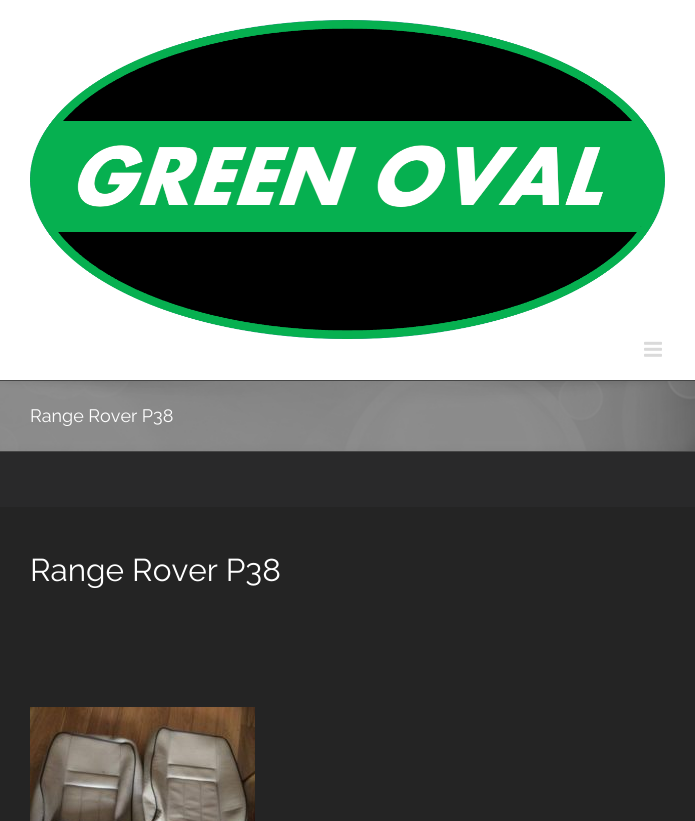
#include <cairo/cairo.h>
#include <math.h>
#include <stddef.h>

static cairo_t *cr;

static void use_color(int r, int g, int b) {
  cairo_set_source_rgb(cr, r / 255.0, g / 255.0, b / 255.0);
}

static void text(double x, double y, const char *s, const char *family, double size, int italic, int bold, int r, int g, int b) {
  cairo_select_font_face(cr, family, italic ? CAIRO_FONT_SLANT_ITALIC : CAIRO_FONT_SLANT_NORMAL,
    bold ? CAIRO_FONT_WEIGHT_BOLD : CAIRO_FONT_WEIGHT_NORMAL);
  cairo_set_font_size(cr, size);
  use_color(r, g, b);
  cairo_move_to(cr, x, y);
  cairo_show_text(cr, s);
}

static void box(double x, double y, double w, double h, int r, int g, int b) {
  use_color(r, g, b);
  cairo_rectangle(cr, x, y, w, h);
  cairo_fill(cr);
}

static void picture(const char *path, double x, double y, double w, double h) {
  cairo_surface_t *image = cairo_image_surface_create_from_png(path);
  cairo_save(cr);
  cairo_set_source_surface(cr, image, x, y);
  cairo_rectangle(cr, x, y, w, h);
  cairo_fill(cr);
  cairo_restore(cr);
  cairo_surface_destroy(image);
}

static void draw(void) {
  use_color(41, 41, 42);
  cairo_paint(cr);
  box(0, 0, 695, 380, 255, 255, 255);
  picture("img_01.png", 30, 20, 635, 319);
  picture("img_02.png", 644, 341, 18, 16);
  box(0, 381, 695, 70, 53, 53, 53);
  picture("img_03.png", 0, 381, 695, 70);
  box(0, 380, 695, 1, 70, 70, 70);
  box(0, 451, 695, 1, 70, 70, 70);
  box(0, 507, 695, 314, 36, 36, 36);
  picture("img_04.png", 30, 707, 225, 114);
  text(30, 422, "Range Rover P38", "Raleway Thin", 18, 0, 0, 255, 255, 255);
  text(30, 581, "Range Rover P38", "Raleway Thin", 31.5, 0, 0, 255, 255, 255);
}

int main(void) {
  cairo_surface_t *surface = cairo_image_surface_create(CAIRO_FORMAT_RGB24, 695, 821);
  cr = cairo_create(surface);
  cairo_font_options_t *options = cairo_font_options_create();
  cairo_font_options_set_hint_metrics(options, CAIRO_HINT_METRICS_OFF);
  cairo_font_options_set_hint_style(options, CAIRO_HINT_STYLE_NONE);
  cairo_set_font_options(cr, options);
  cairo_set_miter_limit(cr, 4);
  draw();
  cairo_surface_write_to_png(surface, "out.png");
  cairo_font_options_destroy(options);
  cairo_destroy(cr);
  cairo_surface_destroy(surface);
  return 0;
}
